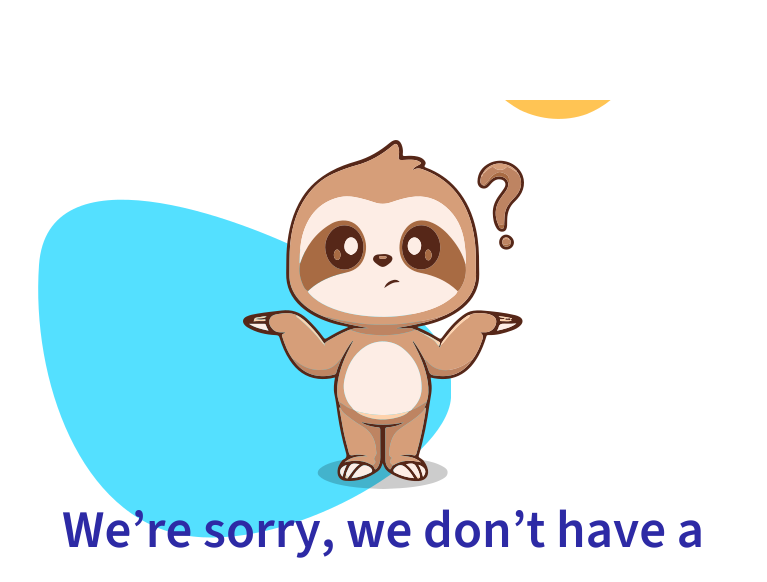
#include <cairo/cairo.h>
#include <math.h>
#include <stddef.h>

static cairo_t *cr;

static void use_color(int r, int g, int b) {
  cairo_set_source_rgb(cr, r / 255.0, g / 255.0, b / 255.0);
}

static void text(double x, double y, const char *s, const char *family, double size, int italic, int bold, int r, int g, int b) {
  cairo_select_font_face(cr, family, italic ? CAIRO_FONT_SLANT_ITALIC : CAIRO_FONT_SLANT_NORMAL,
    bold ? CAIRO_FONT_WEIGHT_BOLD : CAIRO_FONT_WEIGHT_NORMAL);
  cairo_set_font_size(cr, size);
  use_color(r, g, b);
  cairo_move_to(cr, x, y);
  cairo_show_text(cr, s);
}

static void picture(const char *path, double x, double y, double w, double h) {
  cairo_surface_t *image = cairo_image_surface_create_from_png(path);
  cairo_save(cr);
  cairo_set_source_surface(cr, image, x, y);
  cairo_rectangle(cr, x, y, w, h);
  cairo_fill(cr);
  cairo_restore(cr);
  cairo_surface_destroy(image);
}

static void draw(void) {
  use_color(255, 255, 255);
  cairo_paint(cr);
  cairo_save(cr);
  cairo_rectangle(cr, 460, 100, 179, 20);
  cairo_clip(cr);
  use_color(255, 196, 84);
  cairo_new_path(cr);
  cairo_move_to(cr, 468, -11);
  cairo_curve_to(cr, 463, -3, 460, 7, 461, 18);
  cairo_curve_to(cr, 462, 43, 479, 74, 496, 92);
  cairo_curve_to(cr, 503, 99, 511, 105, 520, 110);
  cairo_curve_to(cr, 541, 120, 565, 122, 587, 114);
  cairo_curve_to(cr, 604, 107, 620, 95, 629, 78);
  cairo_curve_to(cr, 638, 62, 641, 43, 637, 24);
  cairo_curve_to(cr, 623, -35, 555, -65, 501, -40);
  cairo_curve_to(cr, 488, -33, 476, -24, 468, -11);
  cairo_close_path(cr);
  cairo_fill(cr);
  cairo_restore(cr);
  cairo_save(cr);
  cairo_rectangle(cr, 38, 199, 413, 339);
  cairo_clip(cr);
  use_color(84, 224, 255);
  cairo_new_path(cr);
  cairo_move_to(cr, 39, 265);
  cairo_curve_to(cr, 31, 381, 81, 517, 183, 535);
  cairo_curve_to(cr, 284, 554, 446, 462, 451, 398);
  cairo_curve_to(cr, 455, 334, 417, 311, 324, 261);
  cairo_curve_to(cr, 230, 212, 47, 150, 39, 265);
  cairo_close_path(cr);
  cairo_fill(cr);
  cairo_restore(cr);
  picture("img_01.png", 243, 140, 281, 349);
  text(62, 547, "We’re sorry, we don’t have a", "Source Sans 3 SemiBold", 53, 0, 0, 45, 42, 165);
}

int main(void) {
  cairo_surface_t *surface = cairo_image_surface_create(CAIRO_FORMAT_RGB24, 767, 582);
  cr = cairo_create(surface);
  cairo_font_options_t *options = cairo_font_options_create();
  cairo_font_options_set_hint_metrics(options, CAIRO_HINT_METRICS_OFF);
  cairo_font_options_set_hint_style(options, CAIRO_HINT_STYLE_NONE);
  cairo_set_font_options(cr, options);
  cairo_set_miter_limit(cr, 4);
  draw();
  cairo_surface_write_to_png(surface, "out.png");
  cairo_font_options_destroy(options);
  cairo_destroy(cr);
  cairo_surface_destroy(surface);
  return 0;
}
